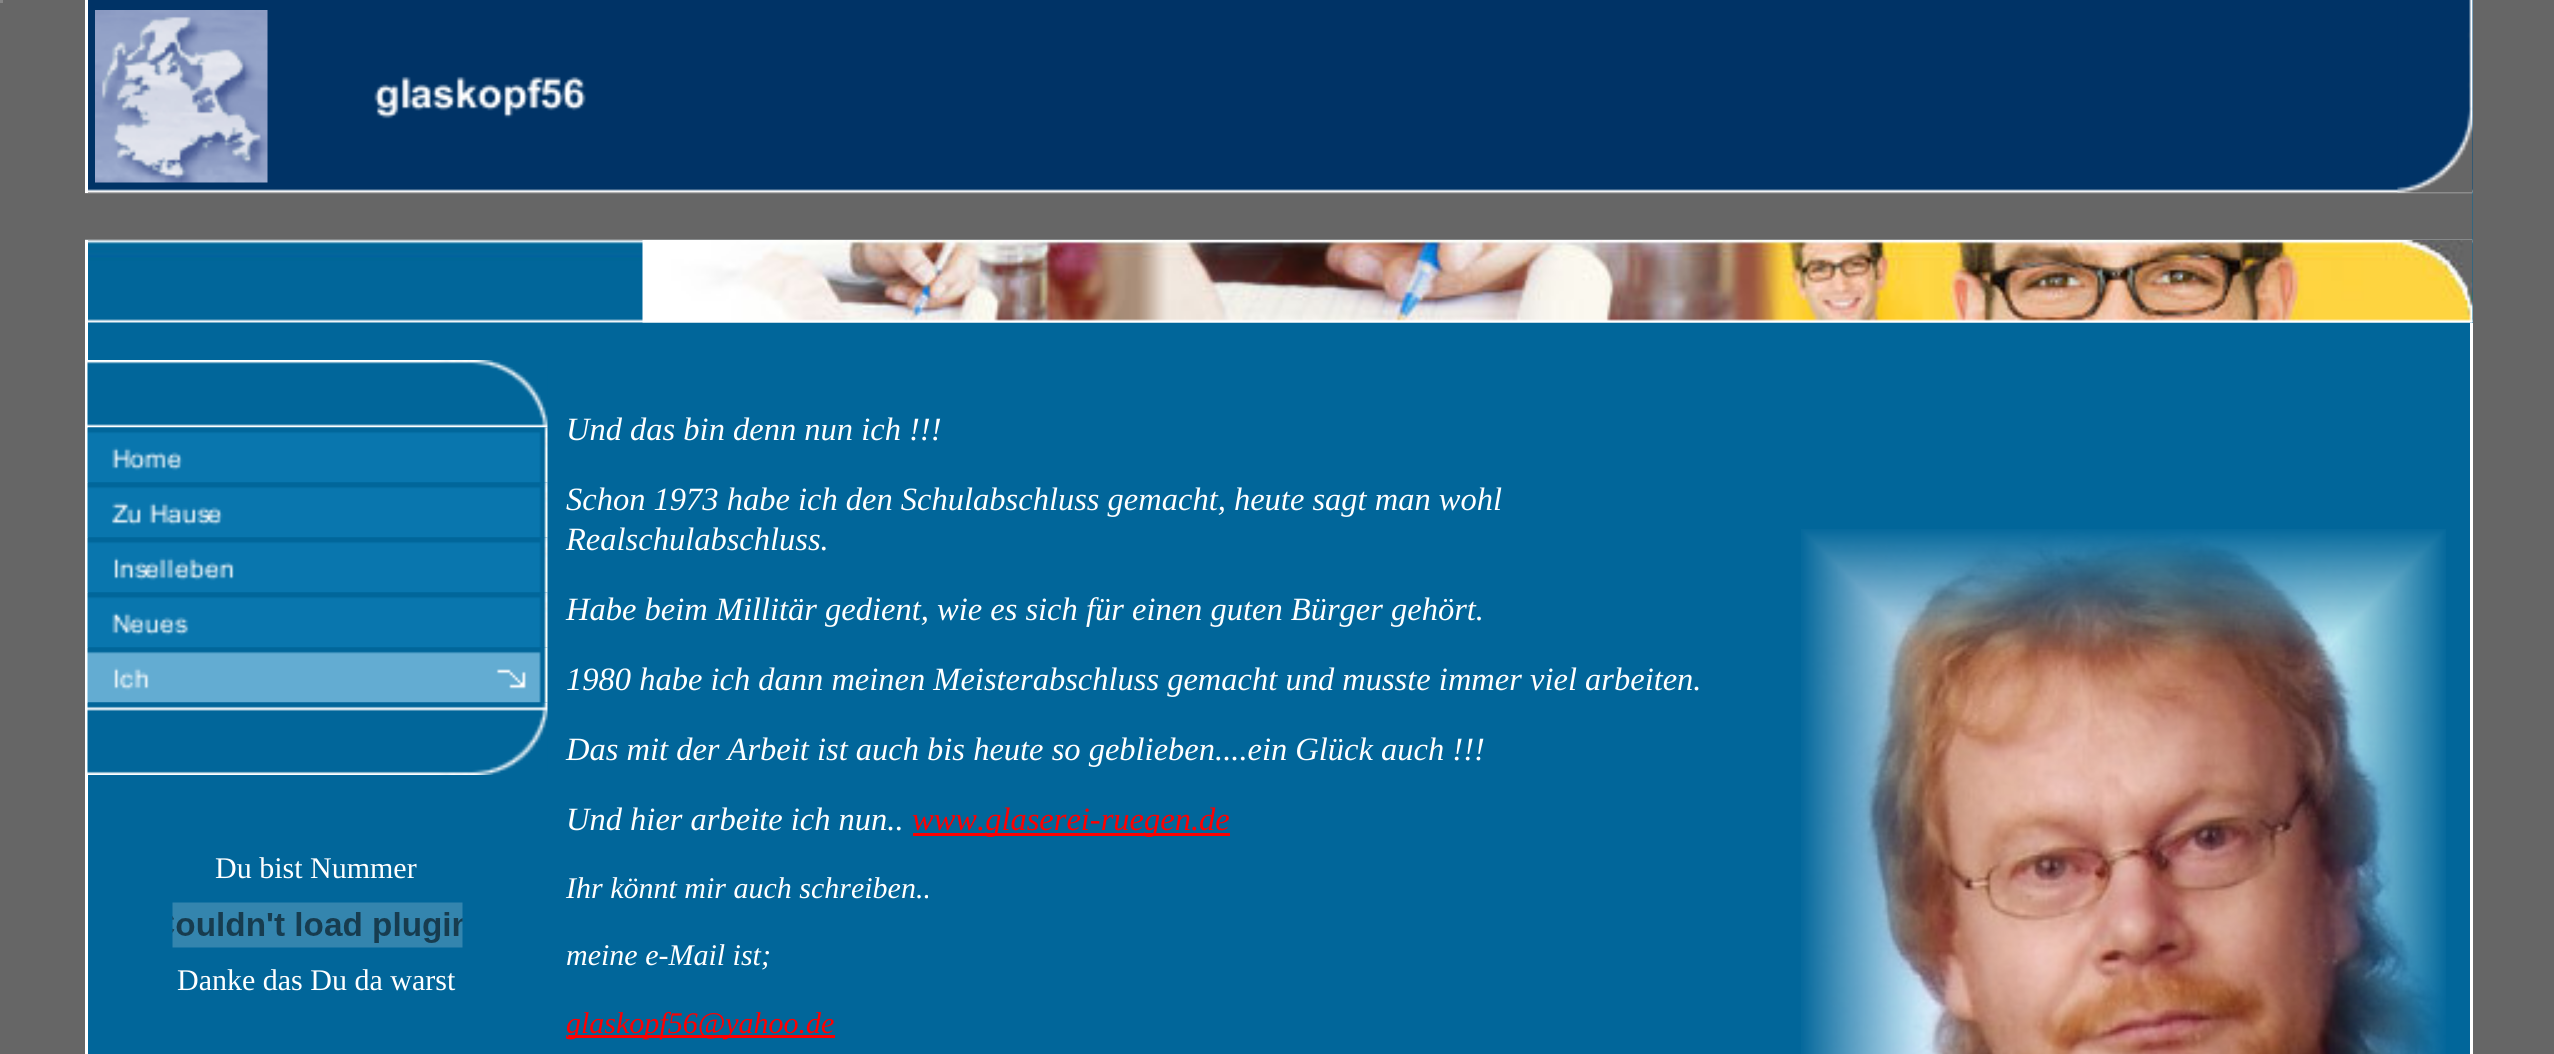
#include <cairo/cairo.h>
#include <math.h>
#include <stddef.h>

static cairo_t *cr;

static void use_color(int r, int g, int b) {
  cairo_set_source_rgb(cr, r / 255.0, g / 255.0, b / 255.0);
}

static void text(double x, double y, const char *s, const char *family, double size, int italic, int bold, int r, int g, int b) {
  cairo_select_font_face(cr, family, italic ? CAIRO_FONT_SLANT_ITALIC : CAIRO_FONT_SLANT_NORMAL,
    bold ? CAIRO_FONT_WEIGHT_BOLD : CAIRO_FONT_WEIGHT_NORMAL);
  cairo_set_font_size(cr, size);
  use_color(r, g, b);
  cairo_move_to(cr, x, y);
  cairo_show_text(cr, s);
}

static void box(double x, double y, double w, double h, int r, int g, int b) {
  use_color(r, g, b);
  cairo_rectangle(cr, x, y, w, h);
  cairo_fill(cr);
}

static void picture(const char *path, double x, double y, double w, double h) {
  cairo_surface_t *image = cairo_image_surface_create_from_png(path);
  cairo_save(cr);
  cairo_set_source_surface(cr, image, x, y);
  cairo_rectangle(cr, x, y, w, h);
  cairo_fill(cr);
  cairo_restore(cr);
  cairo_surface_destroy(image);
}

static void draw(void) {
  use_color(102, 102, 102);
  cairo_paint(cr);
  box(88, 0, 2385, 1054, 1, 102, 154);
  picture("img_01.png", 85, 0, 2388, 323);
  picture("img_02.png", 2397, 0, 76, 193);
  box(85, 0, 3, 193, 255, 255, 255);
  picture("img_03.png", 95, 10, 173, 173);
  picture("img_04.png", 374, 76, 212, 43);
  box(85, 240, 3, 814, 255, 255, 255);
  picture("img_05.png", 642, 240, 1831, 83);
  box(2470, 323, 3, 731, 255, 255, 255);
  box(0, 0, 3, 3, 133, 133, 133);
  picture("img_06.png", 87, 360, 461, 68);
  picture("img_07.png", 87, 427, 461, 56);
  picture("img_08.png", 87, 482, 461, 56);
  picture("img_09.png", 87, 537, 461, 56);
  picture("img_10.png", 87, 592, 461, 56);
  picture("img_11.png", 87, 647, 461, 56);
  picture("img_12.png", 87, 702, 461, 73);
  picture("img_13.png", 172, 902, 291, 46);
  box(913, 833, 317, 3, 255, 0, 0);
  box(568, 1035, 267, 3, 255, 0, 0);
  picture("img_14.png", 1801, 529, 645, 525);
  text(215, 878, "Du bist Nummer", "Liberation Serif", 30, 0, 0, 255, 255, 255);
  text(177, 990, "Danke das Du da warst", "Liberation Serif", 30, 0, 0, 255, 255, 255);
  text(566, 440, "Und das bin denn nun ich !!!", "Liberation Serif", 32.5, 1, 0, 255, 255, 255);
  text(566, 510, "Schon 1973 habe ich den Schulabschluss gemacht, heute sagt man wohl", "Liberation Serif", 32.5, 1, 0, 255, 255, 255);
  text(566, 550, "Realschulabschluss.", "Liberation Serif", 32.5, 1, 0, 255, 255, 255);
  text(566, 620, "Habe beim Millitär gedient, wie es sich für einen guten Bürger gehört.", "Liberation Serif", 32.5, 1, 0, 255, 255, 255);
  text(566, 690, "1980 habe ich dann meinen Meisterabschluss gemacht und musste immer viel arbeiten.", "Liberation Serif", 32.5, 1, 0, 255, 255, 255);
  text(566, 760, "Das mit der Arbeit ist auch bis heute so geblieben....ein Glück auch !!!", "Liberation Serif", 32.5, 1, 0, 255, 255, 255);
  text(566, 830, "Und hier arbeite ich nun..", "Liberation Serif", 32.5, 1, 0, 255, 255, 255);
  text(912, 830, "www.glaserei-ruegen.de", "Liberation Serif", 32.5, 1, 0, 255, 0, 0);
  text(566, 898, "Ihr könnt mir auch schreiben..", "Liberation Serif", 30, 1, 0, 255, 255, 255);
  text(566, 965, "meine e-Mail ist;", "Liberation Serif", 30, 1, 0, 255, 255, 255);
  text(566, 1033, "glaskopf56@yahoo.de", "Liberation Serif", 30, 1, 0, 255, 0, 0);
}

int main(void) {
  cairo_surface_t *surface = cairo_image_surface_create(CAIRO_FORMAT_RGB24, 2554, 1054);
  cr = cairo_create(surface);
  cairo_font_options_t *options = cairo_font_options_create();
  cairo_font_options_set_hint_metrics(options, CAIRO_HINT_METRICS_OFF);
  cairo_font_options_set_hint_style(options, CAIRO_HINT_STYLE_NONE);
  cairo_set_font_options(cr, options);
  cairo_set_miter_limit(cr, 4);
  draw();
  cairo_surface_write_to_png(surface, "out.png");
  cairo_font_options_destroy(options);
  cairo_destroy(cr);
  cairo_surface_destroy(surface);
  return 0;
}
